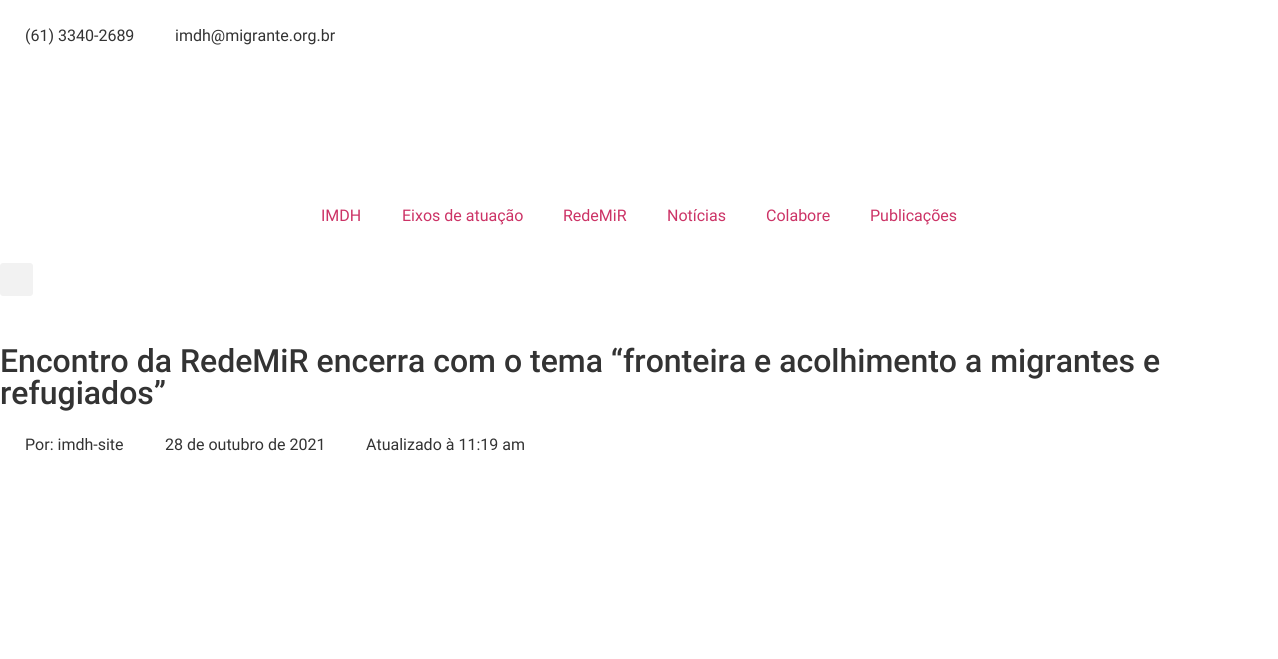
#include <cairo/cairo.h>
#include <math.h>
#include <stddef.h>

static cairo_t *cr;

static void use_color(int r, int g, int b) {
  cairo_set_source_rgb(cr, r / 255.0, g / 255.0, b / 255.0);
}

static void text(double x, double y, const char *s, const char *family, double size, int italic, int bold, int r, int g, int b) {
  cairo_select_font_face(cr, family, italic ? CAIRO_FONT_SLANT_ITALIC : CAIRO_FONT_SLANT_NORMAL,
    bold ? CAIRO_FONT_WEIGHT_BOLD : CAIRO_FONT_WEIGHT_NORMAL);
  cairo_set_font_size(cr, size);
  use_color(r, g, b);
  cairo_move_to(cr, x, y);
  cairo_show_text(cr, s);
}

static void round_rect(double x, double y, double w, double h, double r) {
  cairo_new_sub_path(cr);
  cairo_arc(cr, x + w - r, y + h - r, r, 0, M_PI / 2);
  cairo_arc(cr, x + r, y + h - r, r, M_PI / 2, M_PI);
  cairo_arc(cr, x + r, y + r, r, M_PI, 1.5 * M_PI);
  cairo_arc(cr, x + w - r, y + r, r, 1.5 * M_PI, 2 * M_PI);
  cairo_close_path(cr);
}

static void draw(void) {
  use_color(255, 255, 255);
  cairo_paint(cr);
  use_color(242, 242, 242);
  round_rect(0, 263, 33, 33, 3);
  cairo_fill(cr);
  text(25, 41, "(61) 3340-2689", "Roboto", 16, 0, 0, 51, 51, 51);
  text(175, 41, "imdh@migrante.org.br", "Roboto", 16, 0, 0, 51, 51, 51);
  text(321, 221, "IMDH", "Roboto", 16, 0, 0, 204, 51, 102);
  text(402, 221, "Eixos de atuação", "Roboto", 16, 0, 0, 204, 51, 102);
  text(563, 221, "RedeMiR", "Roboto", 16, 0, 0, 204, 51, 102);
  text(667, 221, "Notícias", "Roboto", 16, 0, 0, 204, 51, 102);
  text(766, 221, "Colabore", "Roboto", 16, 0, 0, 204, 51, 102);
  text(870, 221, "Publicações", "Roboto", 16, 0, 0, 204, 51, 102);
  text(0, 372, "Encontro da RedeMiR encerra com o tema “fronteira e acolhimento a migrantes e", "Roboto Medium", 32, 0, 0, 51, 51, 51);
  text(0, 404, "refugiados”", "Roboto Medium", 32, 0, 0, 51, 51, 51);
  text(25, 450, "Por: imdh-site", "Roboto", 16, 0, 0, 51, 51, 51);
  text(165, 450, "28 de outubro de 2021", "Roboto", 16, 0, 0, 51, 51, 51);
  text(366, 450, "Atualizado à 11:19 am", "Roboto", 16, 0, 0, 51, 51, 51);
}

int main(void) {
  cairo_surface_t *surface = cairo_image_surface_create(CAIRO_FORMAT_RGB24, 1278, 659);
  cr = cairo_create(surface);
  cairo_font_options_t *options = cairo_font_options_create();
  cairo_font_options_set_hint_metrics(options, CAIRO_HINT_METRICS_OFF);
  cairo_font_options_set_hint_style(options, CAIRO_HINT_STYLE_NONE);
  cairo_set_font_options(cr, options);
  cairo_set_miter_limit(cr, 4);
  draw();
  cairo_surface_write_to_png(surface, "out.png");
  cairo_font_options_destroy(options);
  cairo_destroy(cr);
  cairo_surface_destroy(surface);
  return 0;
}
